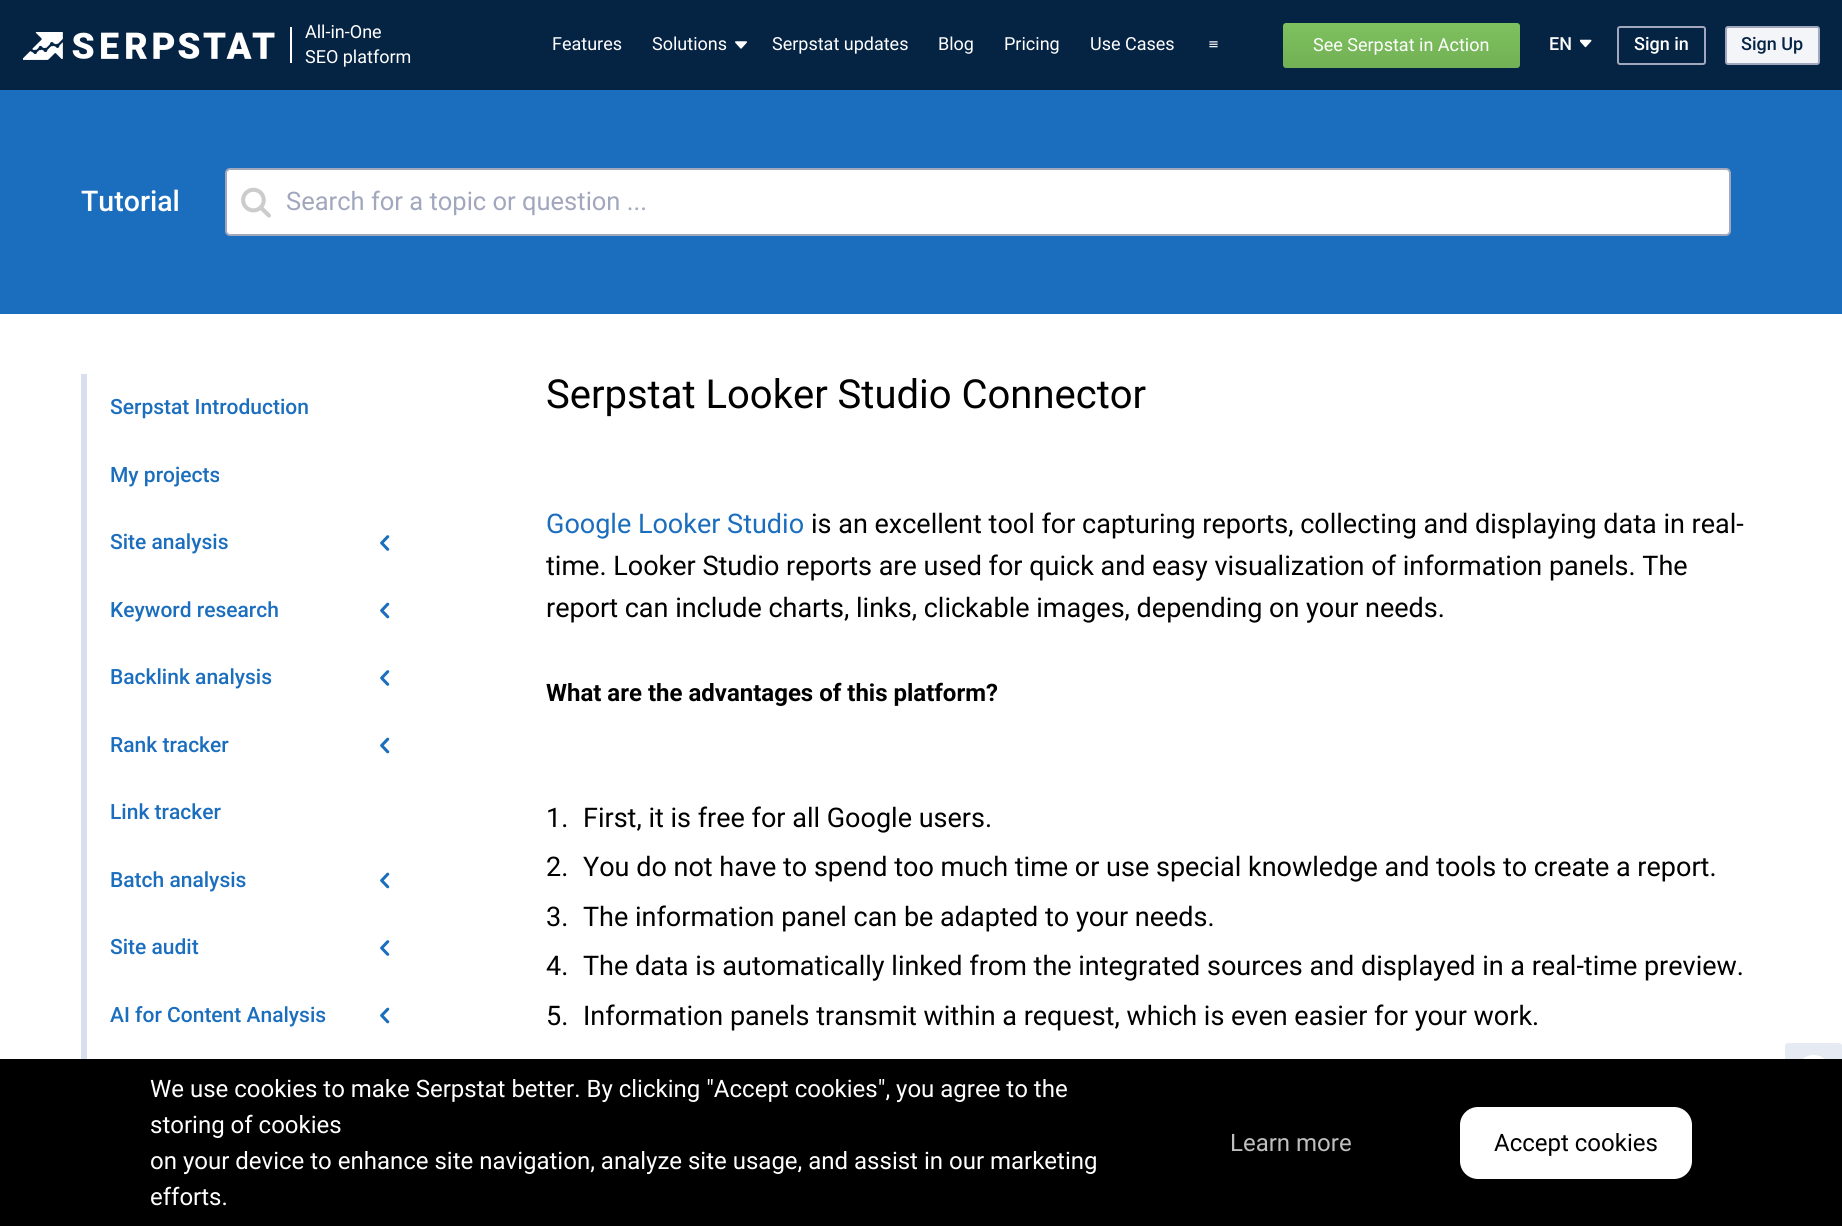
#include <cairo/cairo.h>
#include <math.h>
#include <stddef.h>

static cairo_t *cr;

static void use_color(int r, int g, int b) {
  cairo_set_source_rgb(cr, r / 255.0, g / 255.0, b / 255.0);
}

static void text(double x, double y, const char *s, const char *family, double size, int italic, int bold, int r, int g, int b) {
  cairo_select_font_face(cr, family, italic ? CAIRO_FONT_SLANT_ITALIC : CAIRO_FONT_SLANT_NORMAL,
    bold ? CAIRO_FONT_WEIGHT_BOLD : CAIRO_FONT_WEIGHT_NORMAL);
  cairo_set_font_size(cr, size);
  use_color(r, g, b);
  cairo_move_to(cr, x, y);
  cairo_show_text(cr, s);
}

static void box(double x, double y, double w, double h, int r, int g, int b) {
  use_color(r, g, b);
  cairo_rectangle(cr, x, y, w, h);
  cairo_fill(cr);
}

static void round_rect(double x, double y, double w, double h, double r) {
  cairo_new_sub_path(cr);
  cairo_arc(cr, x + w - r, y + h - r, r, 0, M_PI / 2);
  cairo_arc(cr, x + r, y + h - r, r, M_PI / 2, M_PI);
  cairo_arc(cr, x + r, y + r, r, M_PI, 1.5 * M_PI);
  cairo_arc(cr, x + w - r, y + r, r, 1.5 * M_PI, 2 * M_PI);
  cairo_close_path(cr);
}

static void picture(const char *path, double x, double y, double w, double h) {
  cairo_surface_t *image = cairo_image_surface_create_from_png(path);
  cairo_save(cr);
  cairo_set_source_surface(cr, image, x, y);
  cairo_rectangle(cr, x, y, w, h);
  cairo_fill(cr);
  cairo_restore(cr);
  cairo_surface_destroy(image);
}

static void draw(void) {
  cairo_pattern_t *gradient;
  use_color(255, 255, 255);
  cairo_paint(cr);
  box(0, 0, 1842, 90, 5, 35, 67);
  picture("img_01.png", 23, 32, 252, 28);
  box(290, 27, 2, 36, 255, 255, 255);
  picture("img_02.png", 735, 41, 12, 8);
  picture("img_03.png", 1209, 41, 9, 7);
  gradient = cairo_pattern_create_linear(1401, 22, 1401, 68);
  cairo_pattern_add_color_stop_rgba(gradient, 0, 0.494, 0.757, 0.373, 1);
  cairo_pattern_add_color_stop_rgba(gradient, 1, 0.447, 0.694, 0.333, 1);
  cairo_set_source(cr, gradient);
  cairo_pattern_destroy(gradient);
  round_rect(1283, 23, 237, 45, 3);
  cairo_fill(cr);
  picture("img_04.png", 1580, 39, 12, 9);
  round_rect(1618, 27, 87, 37, 2);
  use_color(161, 167, 188);
  cairo_stroke(cr);
  use_color(243, 245, 249);
  round_rect(1726, 27, 93, 37, 2);
  cairo_fill_preserve(cr);
  use_color(161, 167, 188);
  cairo_stroke(cr);
  box(0, 90, 1842, 224, 27, 110, 190);
  use_color(255, 255, 255);
  round_rect(226, 169, 1504, 66, 4);
  cairo_fill_preserve(cr);
  use_color(161, 167, 188);
  cairo_stroke(cr);
  picture("img_05.png", 241, 187, 30, 31);
  box(81, 374, 6, 685, 217, 223, 236);
  picture("img_06.png", 380, 535, 10, 16);
  picture("img_07.png", 380, 602, 10, 17);
  picture("img_06.png", 380, 670, 10, 16);
  picture("img_07.png", 380, 737, 10, 17);
  picture("img_07.png", 380, 872, 10, 17);
  picture("img_06.png", 380, 940, 10, 16);
  picture("img_07.png", 380, 1007, 10, 17);
  use_color(230, 234, 242);
  round_rect(1785, 1043, 57, 57, 3);
  cairo_fill(cr);
  use_color(255, 255, 255);
  cairo_arc(cr, 1813.5, 1071.5, 16.5, 0, 2 * M_PI);
  cairo_fill(cr);
  box(0, 1059, 1842, 167, 0, 0, 0);
  use_color(255, 255, 255);
  round_rect(1460, 1107, 232, 72, 18);
  cairo_fill(cr);
  text(305, 38, "All-in-One", "Roboto", 18, 0, 0, 255, 255, 255);
  text(305, 63, "SEO platform", "Roboto", 18, 0, 0, 255, 255, 255);
  text(552, 50, "Features", "Roboto", 18, 0, 0, 255, 255, 255);
  text(652, 50, "Solutions", "Roboto", 18, 0, 0, 255, 255, 255);
  text(772, 50, "Serpstat updates", "Roboto", 18, 0, 0, 255, 255, 255);
  text(938, 50, "Blog", "Roboto", 18, 0, 0, 255, 255, 255);
  text(1004, 50, "Pricing", "Roboto", 18, 0, 0, 255, 255, 255);
  text(1090, 50, "Use Cases", "Roboto", 18, 0, 0, 255, 255, 255);
  text(1313, 51, "See Serpstat in Action", "Roboto", 18, 0, 0, 255, 255, 255);
  text(1549, 50, "EN", "Roboto Medium", 18, 0, 0, 255, 255, 255);
  text(1634, 50, "Sign in", "Roboto Medium", 18, 0, 0, 255, 255, 255);
  text(1741, 50, "Sign Up", "Roboto Medium", 18, 0, 0, 5, 35, 67);
  text(81, 211, "Tutorial", "Roboto Medium", 28.5, 0, 0, 255, 255, 255);
  text(286, 210, "Search for a topic or question ...", "Roboto", 25.5, 0, 0, 161, 167, 188);
  text(110, 414, "Serpstat Introduction", "Roboto Medium", 21, 0, 0, 27, 110, 190);
  text(110, 482, "My projects", "Roboto Medium", 21, 0, 0, 27, 110, 190);
  text(110, 549, "Site analysis", "Roboto Medium", 21, 0, 0, 27, 110, 190);
  text(110, 617, "Keyword research", "Roboto Medium", 21, 0, 0, 27, 110, 190);
  text(110, 684, "Backlink analysis", "Roboto Medium", 21, 0, 0, 27, 110, 190);
  text(110, 752, "Rank tracker", "Roboto Medium", 21, 0, 0, 27, 110, 190);
  text(110, 819, "Link tracker", "Roboto Medium", 21, 0, 0, 27, 110, 190);
  text(110, 887, "Batch analysis", "Roboto Medium", 21, 0, 0, 27, 110, 190);
  text(110, 954, "Site audit", "Roboto Medium", 21, 0, 0, 27, 110, 190);
  text(110, 1022, "AI for Content Analysis", "Roboto Medium", 21, 0, 0, 27, 110, 190);
  text(546, 408, "Serpstat Looker Studio Connector", "Roboto", 40, 0, 0, 0, 0, 0);
  text(546, 533, "Google Looker Studio", "Roboto", 27, 0, 0, 27, 110, 190);
  text(811, 533, "is an excellent tool for capturing reports, collecting and displaying data in real-", "Roboto", 27, 0, 0, 0, 0, 0);
  text(546, 575, "time. Looker Studio reports are used for quick and easy visualization of information panels. The", "Roboto", 27, 0, 0, 0, 0, 0);
  text(546, 617, "report can include charts, links, clickable images, depending on your needs.", "Roboto", 27, 0, 0, 0, 0, 0);
  text(546, 701, "What are the advantages of this platform?", "Roboto", 24, 0, 1, 0, 0, 0);
  text(546, 827, "1.", "Roboto", 27, 0, 0, 0, 0, 0);
  text(583, 827, "First, it is free for all Google users.", "Roboto", 27, 0, 0, 0, 0, 0);
  text(546, 876, "2.", "Roboto", 27, 0, 0, 0, 0, 0);
  text(583, 876, "You do not have to spend too much time or use special knowledge and tools to create a report.", "Roboto", 27, 0, 0, 0, 0, 0);
  text(546, 926, "3.", "Roboto", 27, 0, 0, 0, 0, 0);
  text(583, 926, "The information panel can be adapted to your needs.", "Roboto", 27, 0, 0, 0, 0, 0);
  text(546, 975, "4.", "Roboto", 27, 0, 0, 0, 0, 0);
  text(583, 975, "The data is automatically linked from the integrated sources and displayed in a real-time preview.", "Roboto", 27, 0, 0, 0, 0, 0);
  text(546, 1025, "5.", "Roboto", 27, 0, 0, 0, 0, 0);
  text(583, 1025, "Information panels transmit within a request, which is even easier for your work.", "Roboto", 27, 0, 0, 0, 0, 0);
  text(150, 1097, "We use cookies to make Serpstat better. By clicking \"Accept cookies\", you agree to the", "Roboto", 24, 0, 0, 255, 255, 255);
  text(150, 1133, "storing of cookies", "Roboto", 24, 0, 0, 255, 255, 255);
  text(150, 1169, "on your device to enhance site navigation, analyze site usage, and assist in our marketing", "Roboto", 24, 0, 0, 255, 255, 255);
  text(150, 1205, "efforts.", "Roboto", 24, 0, 0, 255, 255, 255);
  text(1230, 1151, "Learn more", "Roboto", 24, 0, 0, 191, 191, 191);
  text(1494, 1151, "Accept cookies", "Roboto", 24, 0, 0, 0, 0, 0);
}

int main(void) {
  cairo_surface_t *surface = cairo_image_surface_create(CAIRO_FORMAT_RGB24, 1842, 1226);
  cr = cairo_create(surface);
  cairo_font_options_t *options = cairo_font_options_create();
  cairo_font_options_set_hint_metrics(options, CAIRO_HINT_METRICS_OFF);
  cairo_font_options_set_hint_style(options, CAIRO_HINT_STYLE_NONE);
  cairo_set_font_options(cr, options);
  cairo_set_miter_limit(cr, 4);
  draw();
  cairo_surface_write_to_png(surface, "out.png");
  cairo_font_options_destroy(options);
  cairo_destroy(cr);
  cairo_surface_destroy(surface);
  return 0;
}
